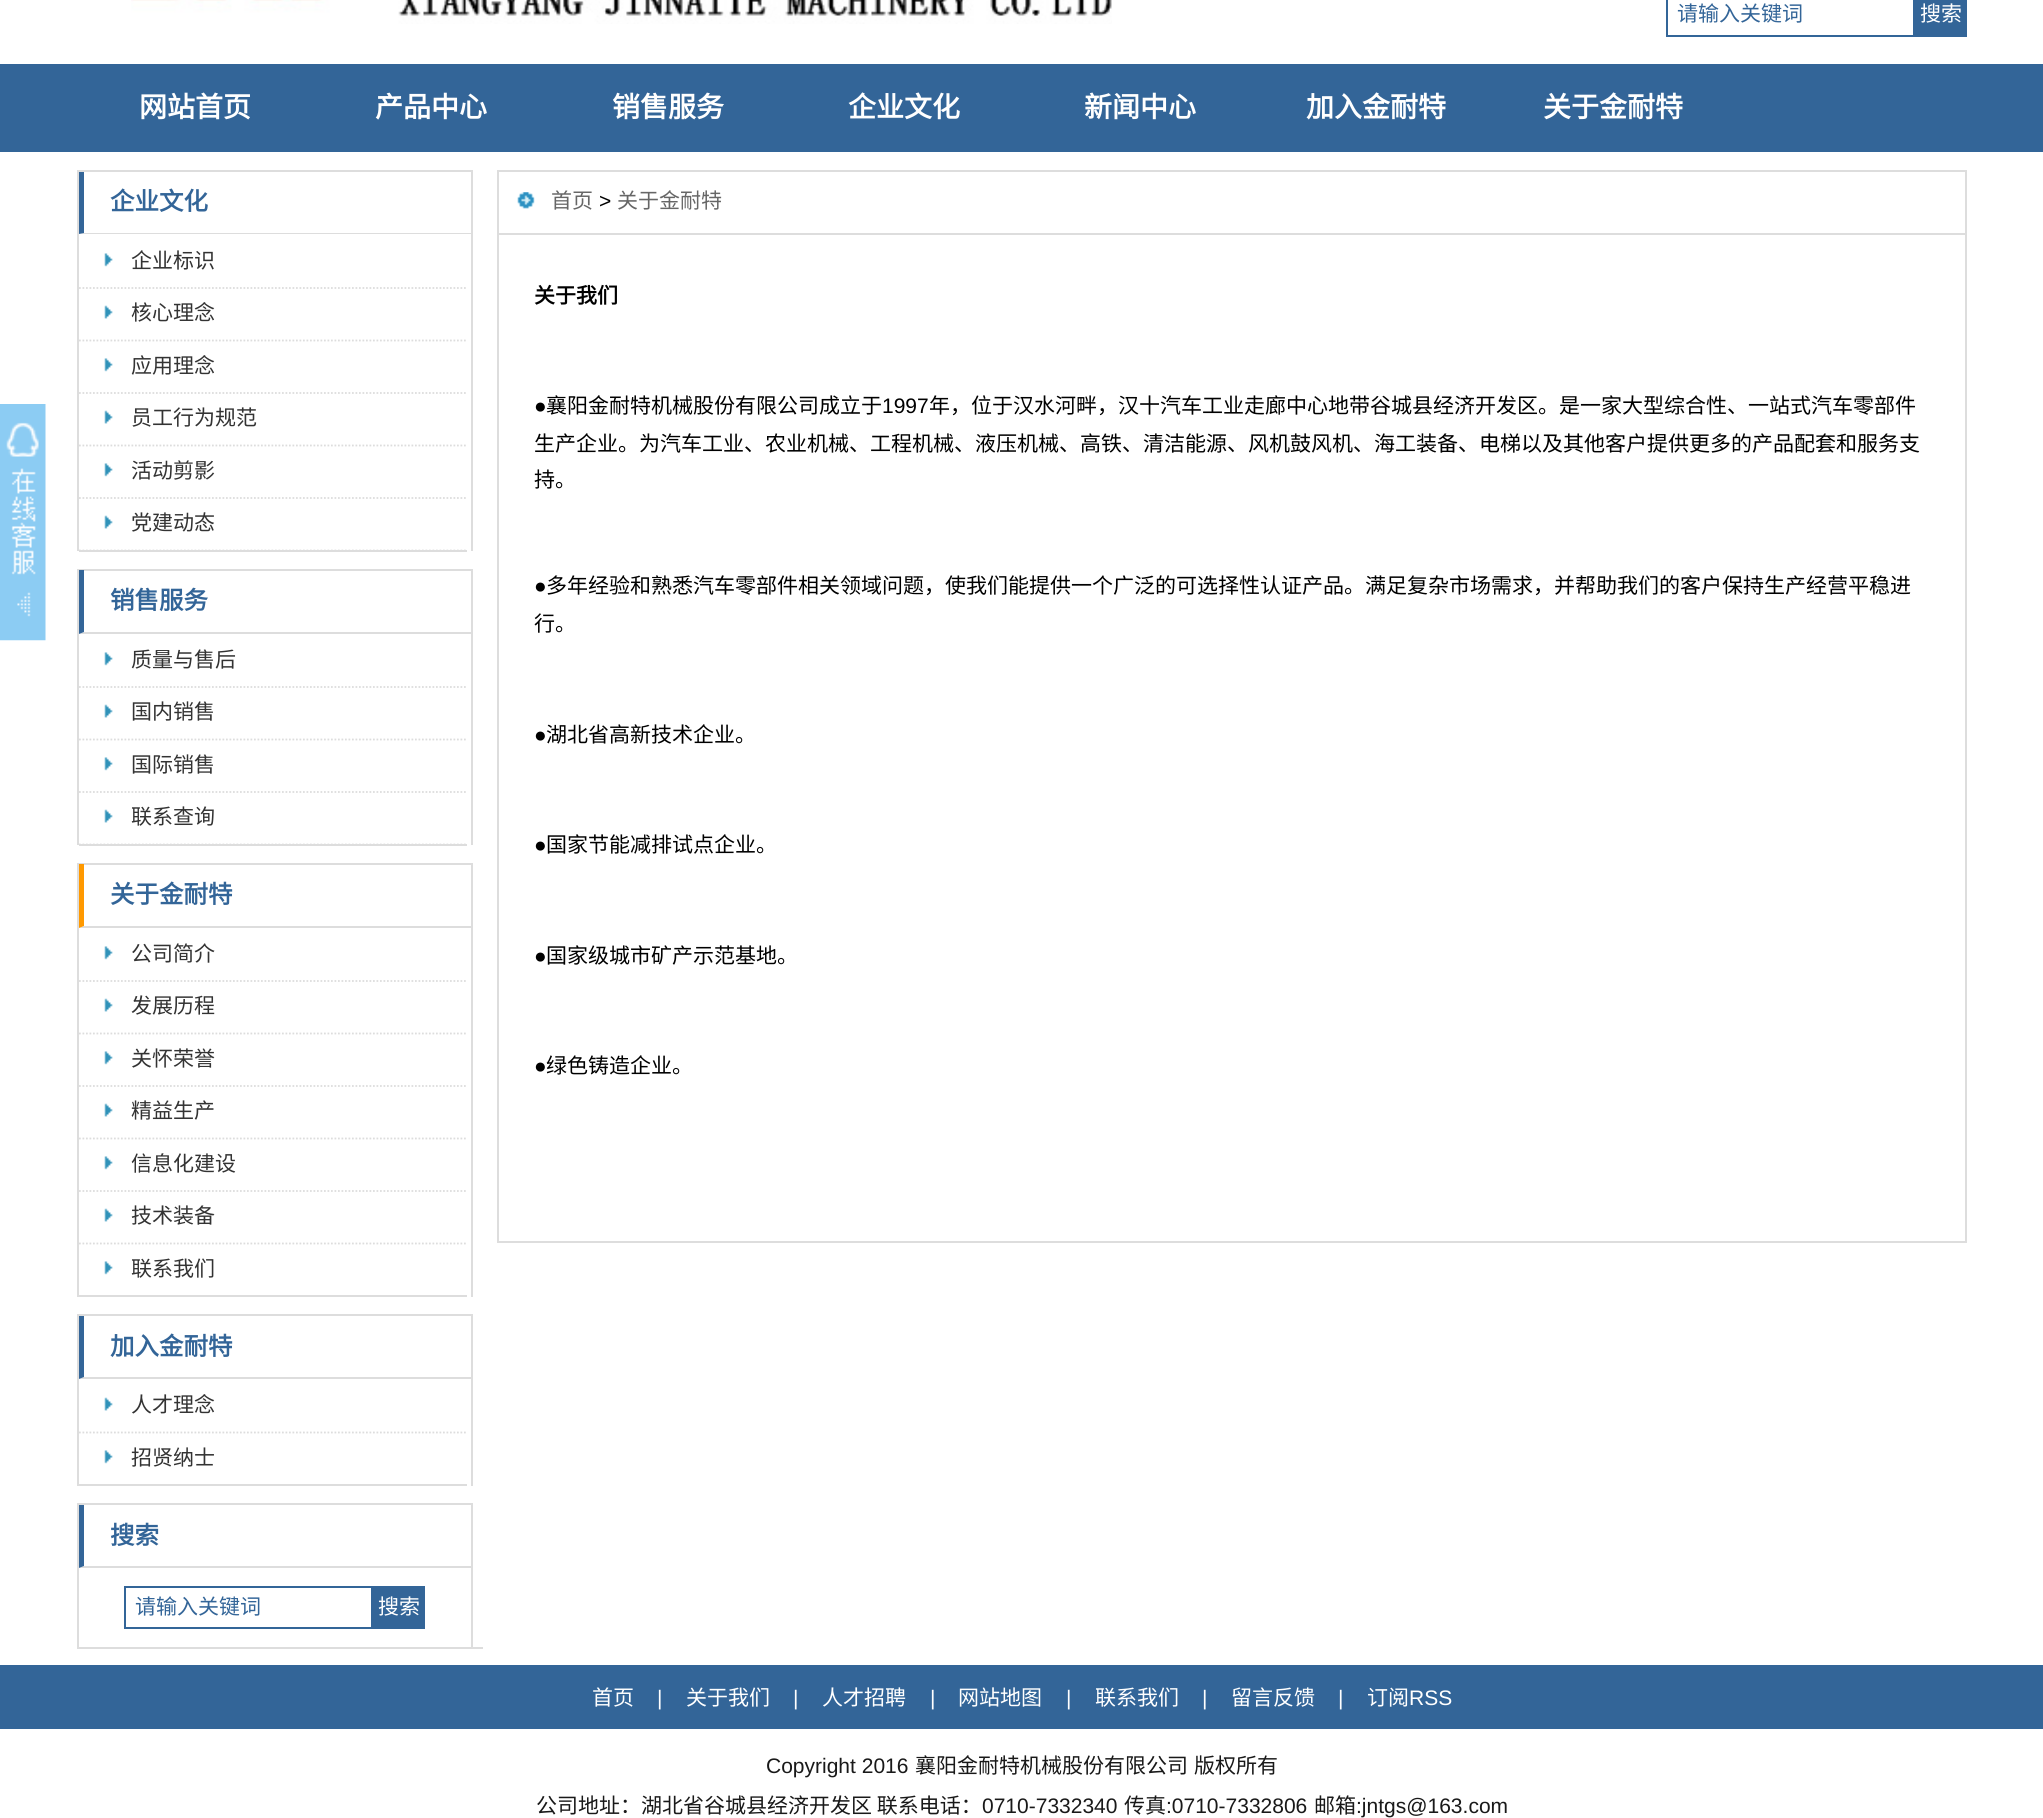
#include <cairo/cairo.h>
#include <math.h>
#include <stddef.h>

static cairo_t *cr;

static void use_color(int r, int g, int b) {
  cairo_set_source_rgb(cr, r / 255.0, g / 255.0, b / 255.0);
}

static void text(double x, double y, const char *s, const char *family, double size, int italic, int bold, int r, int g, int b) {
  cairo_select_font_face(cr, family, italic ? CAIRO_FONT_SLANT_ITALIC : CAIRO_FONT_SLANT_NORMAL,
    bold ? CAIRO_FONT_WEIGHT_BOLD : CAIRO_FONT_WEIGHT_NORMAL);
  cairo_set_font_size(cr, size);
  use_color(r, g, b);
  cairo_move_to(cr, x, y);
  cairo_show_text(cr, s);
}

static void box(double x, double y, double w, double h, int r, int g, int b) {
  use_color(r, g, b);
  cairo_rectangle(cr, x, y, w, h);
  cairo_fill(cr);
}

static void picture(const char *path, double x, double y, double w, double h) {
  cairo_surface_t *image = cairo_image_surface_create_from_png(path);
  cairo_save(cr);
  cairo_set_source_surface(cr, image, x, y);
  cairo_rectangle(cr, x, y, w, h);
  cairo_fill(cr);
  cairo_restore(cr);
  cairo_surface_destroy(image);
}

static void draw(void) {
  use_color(255, 255, 255);
  cairo_paint(cr);
  picture("img_01.png", 0, 404, 46, 237);
  picture("img_02.png", 131, 0, 981, 24);
  cairo_rectangle(cr, 1667, -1, 247, 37);
  use_color(51, 101, 152);
  cairo_stroke(cr);
  box(1915, 0, 52, 37, 51, 101, 152);
  box(0, 64, 2043, 88, 51, 101, 152);
  box(77, 170, 396, 2, 221, 221, 221);
  box(471, 170, 2, 381, 221, 221, 221);
  box(77, 170, 2, 381, 221, 221, 221);
  cairo_new_path(cr);
  cairo_move_to(cr, 471, 234);
  cairo_line_to(cr, 79, 234);
  cairo_line_to(cr, 84, 233);
  cairo_line_to(cr, 471, 233);
  cairo_close_path(cr);
  cairo_fill(cr);
  use_color(51, 101, 152);
  cairo_new_path(cr);
  cairo_move_to(cr, 79, 234);
  cairo_line_to(cr, 79, 172);
  cairo_line_to(cr, 84, 172);
  cairo_line_to(cr, 84, 233);
  cairo_close_path(cr);
  cairo_fill(cr);
  box(79, 550, 388, 2, 221, 221, 221);
  picture("img_03.png", 104, 253, 9, 14);
  cairo_new_path(cr);
  cairo_move_to(cr, 79, 288);
  cairo_line_to(cr, 467, 288);
  cairo_set_line_width(cr, 1.8);
  cairo_set_dash(cr, (double[]){1.75, 1.75}, 2, 0);
  cairo_stroke(cr);
  picture("img_04.png", 104, 305, 9, 14);
  cairo_new_path(cr);
  cairo_move_to(cr, 79, 340.5);
  cairo_line_to(cr, 467, 340.5);
  cairo_stroke(cr);
  picture("img_03.png", 104, 358, 9, 14);
  cairo_new_path(cr);
  cairo_move_to(cr, 79, 393);
  cairo_line_to(cr, 467, 393);
  cairo_stroke(cr);
  picture("img_04.png", 104, 410, 9, 14);
  cairo_new_path(cr);
  cairo_move_to(cr, 79, 445.5);
  cairo_line_to(cr, 467, 445.5);
  cairo_stroke(cr);
  picture("img_03.png", 104, 463, 9, 14);
  cairo_new_path(cr);
  cairo_move_to(cr, 79, 498);
  cairo_line_to(cr, 467, 498);
  cairo_stroke(cr);
  picture("img_04.png", 104, 515, 9, 14);
  cairo_new_path(cr);
  cairo_move_to(cr, 79, 550.5);
  cairo_line_to(cr, 467, 550.5);
  cairo_stroke(cr);
  box(77, 569, 396, 2, 221, 221, 221);
  box(471, 569, 2, 276, 221, 221, 221);
  box(77, 569, 2, 276, 221, 221, 221);
  cairo_new_path(cr);
  cairo_move_to(cr, 471, 634);
  cairo_line_to(cr, 79, 634);
  cairo_line_to(cr, 84, 632);
  cairo_line_to(cr, 471, 632);
  cairo_close_path(cr);
  cairo_fill(cr);
  use_color(51, 101, 152);
  cairo_new_path(cr);
  cairo_move_to(cr, 79, 634);
  cairo_line_to(cr, 79, 570);
  cairo_line_to(cr, 84, 570);
  cairo_line_to(cr, 84, 632);
  cairo_close_path(cr);
  cairo_fill(cr);
  box(79, 844, 388, 2, 221, 221, 221);
  picture("img_03.png", 104, 652, 9, 14);
  cairo_new_path(cr);
  cairo_move_to(cr, 79, 687);
  cairo_line_to(cr, 467, 687);
  cairo_stroke(cr);
  picture("img_04.png", 104, 704, 9, 14);
  cairo_new_path(cr);
  cairo_move_to(cr, 79, 739.5);
  cairo_line_to(cr, 467, 739.5);
  cairo_stroke(cr);
  picture("img_03.png", 104, 757, 9, 14);
  cairo_new_path(cr);
  cairo_move_to(cr, 79, 792);
  cairo_line_to(cr, 467, 792);
  cairo_stroke(cr);
  picture("img_04.png", 104, 809, 9, 14);
  cairo_new_path(cr);
  cairo_move_to(cr, 79, 844.5);
  cairo_line_to(cr, 467, 844.5);
  cairo_stroke(cr);
  box(77, 863, 396, 2, 221, 221, 221);
  box(471, 863, 2, 434, 221, 221, 221);
  box(77, 863, 2, 434, 221, 221, 221);
  cairo_new_path(cr);
  cairo_move_to(cr, 471, 928);
  cairo_line_to(cr, 79, 928);
  cairo_line_to(cr, 84, 926);
  cairo_line_to(cr, 471, 926);
  cairo_close_path(cr);
  cairo_fill(cr);
  use_color(255, 153, 0);
  cairo_new_path(cr);
  cairo_move_to(cr, 79, 928);
  cairo_line_to(cr, 79, 864);
  cairo_line_to(cr, 84, 864);
  cairo_line_to(cr, 84, 926);
  cairo_close_path(cr);
  cairo_fill(cr);
  box(79, 1295, 388, 2, 221, 221, 221);
  picture("img_03.png", 104, 946, 9, 14);
  cairo_new_path(cr);
  cairo_move_to(cr, 79, 981);
  cairo_line_to(cr, 467, 981);
  cairo_stroke(cr);
  picture("img_04.png", 104, 998, 9, 14);
  cairo_new_path(cr);
  cairo_move_to(cr, 79, 1033.5);
  cairo_line_to(cr, 467, 1033.5);
  cairo_stroke(cr);
  picture("img_03.png", 104, 1051, 9, 14);
  cairo_new_path(cr);
  cairo_move_to(cr, 79, 1086);
  cairo_line_to(cr, 467, 1086);
  cairo_stroke(cr);
  picture("img_04.png", 104, 1103, 9, 14);
  cairo_new_path(cr);
  cairo_move_to(cr, 79, 1138.5);
  cairo_line_to(cr, 467, 1138.5);
  cairo_stroke(cr);
  picture("img_03.png", 104, 1156, 9, 14);
  cairo_new_path(cr);
  cairo_move_to(cr, 79, 1191);
  cairo_line_to(cr, 467, 1191);
  cairo_stroke(cr);
  picture("img_04.png", 104, 1208, 9, 14);
  cairo_new_path(cr);
  cairo_move_to(cr, 79, 1243.5);
  cairo_line_to(cr, 467, 1243.5);
  cairo_stroke(cr);
  picture("img_03.png", 104, 1261, 9, 14);
  box(77, 1314, 396, 2, 221, 221, 221);
  box(471, 1314, 2, 172, 221, 221, 221);
  box(77, 1314, 2, 172, 221, 221, 221);
  cairo_new_path(cr);
  cairo_move_to(cr, 471, 1379);
  cairo_line_to(cr, 79, 1379);
  cairo_line_to(cr, 84, 1377);
  cairo_line_to(cr, 471, 1377);
  cairo_close_path(cr);
  cairo_fill(cr);
  use_color(51, 101, 152);
  cairo_new_path(cr);
  cairo_move_to(cr, 79, 1379);
  cairo_line_to(cr, 79, 1316);
  cairo_line_to(cr, 84, 1316);
  cairo_line_to(cr, 84, 1377);
  cairo_close_path(cr);
  cairo_fill(cr);
  box(79, 1484, 388, 2, 221, 221, 221);
  picture("img_04.png", 104, 1397, 9, 14);
  cairo_new_path(cr);
  cairo_move_to(cr, 79, 1432.5);
  cairo_line_to(cr, 467, 1432.5);
  cairo_stroke(cr);
  picture("img_03.png", 104, 1450, 9, 14);
  box(77, 1503, 396, 2, 221, 221, 221);
  box(471, 1503, 2, 146, 221, 221, 221);
  box(77, 1503, 2, 146, 221, 221, 221);
  cairo_new_path(cr);
  cairo_move_to(cr, 471, 1568);
  cairo_line_to(cr, 79, 1568);
  cairo_line_to(cr, 84, 1566);
  cairo_line_to(cr, 471, 1566);
  cairo_close_path(cr);
  cairo_fill(cr);
  use_color(51, 101, 152);
  cairo_new_path(cr);
  cairo_move_to(cr, 79, 1568);
  cairo_line_to(cr, 79, 1505);
  cairo_line_to(cr, 84, 1505);
  cairo_line_to(cr, 84, 1566);
  cairo_close_path(cr);
  cairo_fill(cr);
  box(79, 1647, 404, 2, 221, 221, 221);
  cairo_rectangle(cr, 125, 1587, 247, 41);
  use_color(51, 101, 152);
  cairo_set_line_width(cr, 2);
  cairo_set_dash(cr, NULL, 0, 0);
  cairo_stroke(cr);
  box(373, 1586, 52, 43, 51, 101, 152);
  cairo_rectangle(cr, 498, 171, 1468, 1071);
  use_color(221, 221, 221);
  cairo_stroke(cr);
  box(499, 233, 1466, 2, 221, 221, 221);
  picture("img_05.png", 517, 192, 18, 17);
  box(0, 1665, 2043, 64, 51, 101, 152);
  text(1677, 21, "请输入关键词", "Noto Sans CJK SC", 21, 0, 0, 51, 101, 152);
  text(1920, 21, "搜索", "Noto Sans CJK SC", 21, 0, 0, 255, 255, 255);
  text(139, 117, "网站首页", "Noto Sans CJK SC", 28, 0, 1, 255, 255, 255);
  text(375, 117, "产品中心", "Noto Sans CJK SC", 28, 0, 1, 255, 255, 255);
  text(612, 117, "销售服务", "Noto Sans CJK SC", 28, 0, 1, 255, 255, 255);
  text(848, 117, "企业文化", "Noto Sans CJK SC", 28, 0, 1, 255, 255, 255);
  text(1084, 117, "新闻中心", "Noto Sans CJK SC", 28, 0, 1, 255, 255, 255);
  text(1306, 117, "加入金耐特", "Noto Sans CJK SC", 28, 0, 1, 255, 255, 255);
  text(1543, 117, "关于金耐特", "Noto Sans CJK SC", 28, 0, 1, 255, 255, 255);
  text(110, 210, "企业文化", "Noto Sans CJK SC", 24.5, 0, 1, 51, 101, 152);
  text(131, 268, "企业标识", "Noto Sans CJK SC", 21, 0, 0, 51, 51, 51);
  text(131, 320, "核心理念", "Noto Sans CJK SC", 21, 0, 0, 51, 51, 51);
  text(131, 373, "应用理念", "Noto Sans CJK SC", 21, 0, 0, 51, 51, 51);
  text(131, 425, "员工行为规范", "Noto Sans CJK SC", 21, 0, 0, 51, 51, 51);
  text(131, 478, "活动剪影", "Noto Sans CJK SC", 21, 0, 0, 51, 51, 51);
  text(131, 530, "党建动态", "Noto Sans CJK SC", 21, 0, 0, 51, 51, 51);
  text(110, 609, "销售服务", "Noto Sans CJK SC", 24.5, 0, 1, 51, 101, 152);
  text(131, 667, "质量与售后", "Noto Sans CJK SC", 21, 0, 0, 51, 51, 51);
  text(131, 719, "国内销售", "Noto Sans CJK SC", 21, 0, 0, 51, 51, 51);
  text(131, 772, "国际销售", "Noto Sans CJK SC", 21, 0, 0, 51, 51, 51);
  text(131, 824, "联系查询", "Noto Sans CJK SC", 21, 0, 0, 51, 51, 51);
  text(110, 903, "关于金耐特", "Noto Sans CJK SC", 24.5, 0, 1, 51, 101, 152);
  text(131, 961, "公司简介", "Noto Sans CJK SC", 21, 0, 0, 51, 51, 51);
  text(131, 1013, "发展历程", "Noto Sans CJK SC", 21, 0, 0, 51, 51, 51);
  text(131, 1066, "关怀荣誉", "Noto Sans CJK SC", 21, 0, 0, 51, 51, 51);
  text(131, 1118, "精益生产", "Noto Sans CJK SC", 21, 0, 0, 51, 51, 51);
  text(131, 1171, "信息化建设", "Noto Sans CJK SC", 21, 0, 0, 51, 51, 51);
  text(131, 1223, "技术装备", "Noto Sans CJK SC", 21, 0, 0, 51, 51, 51);
  text(131, 1276, "联系我们", "Noto Sans CJK SC", 21, 0, 0, 51, 51, 51);
  text(110, 1355, "加入金耐特", "Noto Sans CJK SC", 24.5, 0, 1, 51, 101, 152);
  text(131, 1412, "人才理念", "Noto Sans CJK SC", 21, 0, 0, 51, 51, 51);
  text(131, 1465, "招贤纳士", "Noto Sans CJK SC", 21, 0, 0, 51, 51, 51);
  text(110, 1544, "搜索", "Noto Sans CJK SC", 24.5, 0, 1, 51, 101, 152);
  text(135, 1614, "请输入关键词", "Noto Sans CJK SC", 21, 0, 0, 51, 101, 152);
  text(378, 1614, "搜索", "Noto Sans CJK SC", 21, 0, 0, 255, 255, 255);
  text(551, 208, "首页", "Noto Sans CJK SC", 21, 0, 0, 102, 102, 102);
  text(599, 208, ">", "Liberation Sans", 21, 0, 0, 0, 0, 0);
  text(617, 208, "关于金耐特", "Noto Sans CJK SC", 21, 0, 0, 102, 102, 102);
  text(534, 303, "关于我们", "Noto Sans CJK SC", 21, 0, 1, 0, 0, 0);
  text(534, 413, "●", "Liberation Sans", 21, 0, 0, 0, 0, 0);
  text(546, 413, "襄阳金耐特机械股份有限公司成立于", "Noto Sans CJK SC", 21, 0, 0, 0, 0, 0);
  text(882, 413, "1997", "Liberation Sans", 21, 0, 0, 0, 0, 0);
  text(929, 413, "年，位于汉水河畔，汉十汽车工业走廊中心地带谷城县经济开发区。是一家大型综合性、一站式汽车零部件", "Noto Sans CJK SC", 21, 0, 0, 0, 0, 0);
  text(534, 451, "生产企业。为汽车工业、农业机械、工程机械、液压机械、高铁、清洁能源、风机鼓风机、海工装备、电梯以及其他客户提供更多的产品配套和服务支", "Noto Sans CJK SC", 21, 0, 0, 0, 0, 0);
  text(534, 487, "持。", "Noto Sans CJK SC", 21, 0, 0, 0, 0, 0);
  text(534, 593, "●", "Liberation Sans", 21, 0, 0, 0, 0, 0);
  text(546, 593, "多年经验和熟悉汽车零部件相关领域问题，使我们能提供一个广泛的可选择性认证产品。满足复杂市场需求，并帮助我们的客户保持生产经营平稳进", "Noto Sans CJK SC", 21, 0, 0, 0, 0, 0);
  text(534, 631, "行。", "Noto Sans CJK SC", 21, 0, 0, 0, 0, 0);
  text(534, 742, "●", "Liberation Sans", 21, 0, 0, 0, 0, 0);
  text(546, 742, "湖北省高新技术企业。", "Noto Sans CJK SC", 21, 0, 0, 0, 0, 0);
  text(534, 852, "●", "Liberation Sans", 21, 0, 0, 0, 0, 0);
  text(546, 852, "国家节能减排试点企业。", "Noto Sans CJK SC", 21, 0, 0, 0, 0, 0);
  text(534, 963, "●", "Liberation Sans", 21, 0, 0, 0, 0, 0);
  text(546, 963, "国家级城市矿产示范基地。", "Noto Sans CJK SC", 21, 0, 0, 0, 0, 0);
  text(534, 1073, "●", "Liberation Sans", 21, 0, 0, 0, 0, 0);
  text(546, 1073, "绿色铸造企业。", "Noto Sans CJK SC", 21, 0, 0, 0, 0, 0);
  text(592, 1705, "首页", "Noto Sans CJK SC", 21, 0, 0, 255, 255, 255);
  text(657, 1705, "|", "Liberation Sans", 21, 0, 0, 255, 255, 255);
  text(686, 1705, "关于我们", "Noto Sans CJK SC", 21, 0, 0, 255, 255, 255);
  text(793, 1705, "|", "Liberation Sans", 21, 0, 0, 255, 255, 255);
  text(822, 1705, "人才招聘", "Noto Sans CJK SC", 21, 0, 0, 255, 255, 255);
  text(930, 1705, "|", "Liberation Sans", 21, 0, 0, 255, 255, 255);
  text(958, 1705, "网站地图", "Noto Sans CJK SC", 21, 0, 0, 255, 255, 255);
  text(1066, 1705, "|", "Liberation Sans", 21, 0, 0, 255, 255, 255);
  text(1095, 1705, "联系我们", "Noto Sans CJK SC", 21, 0, 0, 255, 255, 255);
  text(1202, 1705, "|", "Liberation Sans", 21, 0, 0, 255, 255, 255);
  text(1231, 1705, "留言反馈", "Noto Sans CJK SC", 21, 0, 0, 255, 255, 255);
  text(1338, 1705, "|", "Liberation Sans", 21, 0, 0, 255, 255, 255);
  text(1367, 1705, "订阅", "Noto Sans CJK SC", 21, 0, 0, 255, 255, 255);
  text(1409, 1705, "RSS", "Liberation Sans", 21, 0, 0, 255, 255, 255);
  text(766, 1773, "Copyright 2016", "Liberation Sans", 21, 0, 0, 25, 25, 25);
  text(915, 1773, "襄阳金耐特机械股份有限公司", "Noto Sans CJK SC", 21, 0, 0, 25, 25, 25);
  text(1194, 1773, "版权所有", "Noto Sans CJK SC", 21, 0, 0, 25, 25, 25);
  text(536, 1813, "公司地址：湖北省谷城县经济开发区 联系电话：", "Noto Sans CJK SC", 21, 0, 0, 25, 25, 25);
  text(982, 1813, "0710-7332340", "Liberation Sans", 21, 0, 0, 25, 25, 25);
  text(1124, 1813, "传真", "Noto Sans CJK SC", 21, 0, 0, 25, 25, 25);
  text(1166, 1813, ":0710-7332806", "Liberation Sans", 21, 0, 0, 25, 25, 25);
  text(1314, 1813, "邮箱", "Noto Sans CJK SC", 21, 0, 0, 25, 25, 25);
  text(1356, 1813, ":jntgs@163.com", "Liberation Sans", 21, 0, 0, 25, 25, 25);
}

int main(void) {
  cairo_surface_t *surface = cairo_image_surface_create(CAIRO_FORMAT_RGB24, 2043, 1818);
  cr = cairo_create(surface);
  cairo_font_options_t *options = cairo_font_options_create();
  cairo_font_options_set_hint_metrics(options, CAIRO_HINT_METRICS_OFF);
  cairo_font_options_set_hint_style(options, CAIRO_HINT_STYLE_NONE);
  cairo_set_font_options(cr, options);
  cairo_set_miter_limit(cr, 4);
  draw();
  cairo_surface_write_to_png(surface, "out.png");
  cairo_font_options_destroy(options);
  cairo_destroy(cr);
  cairo_surface_destroy(surface);
  return 0;
}
